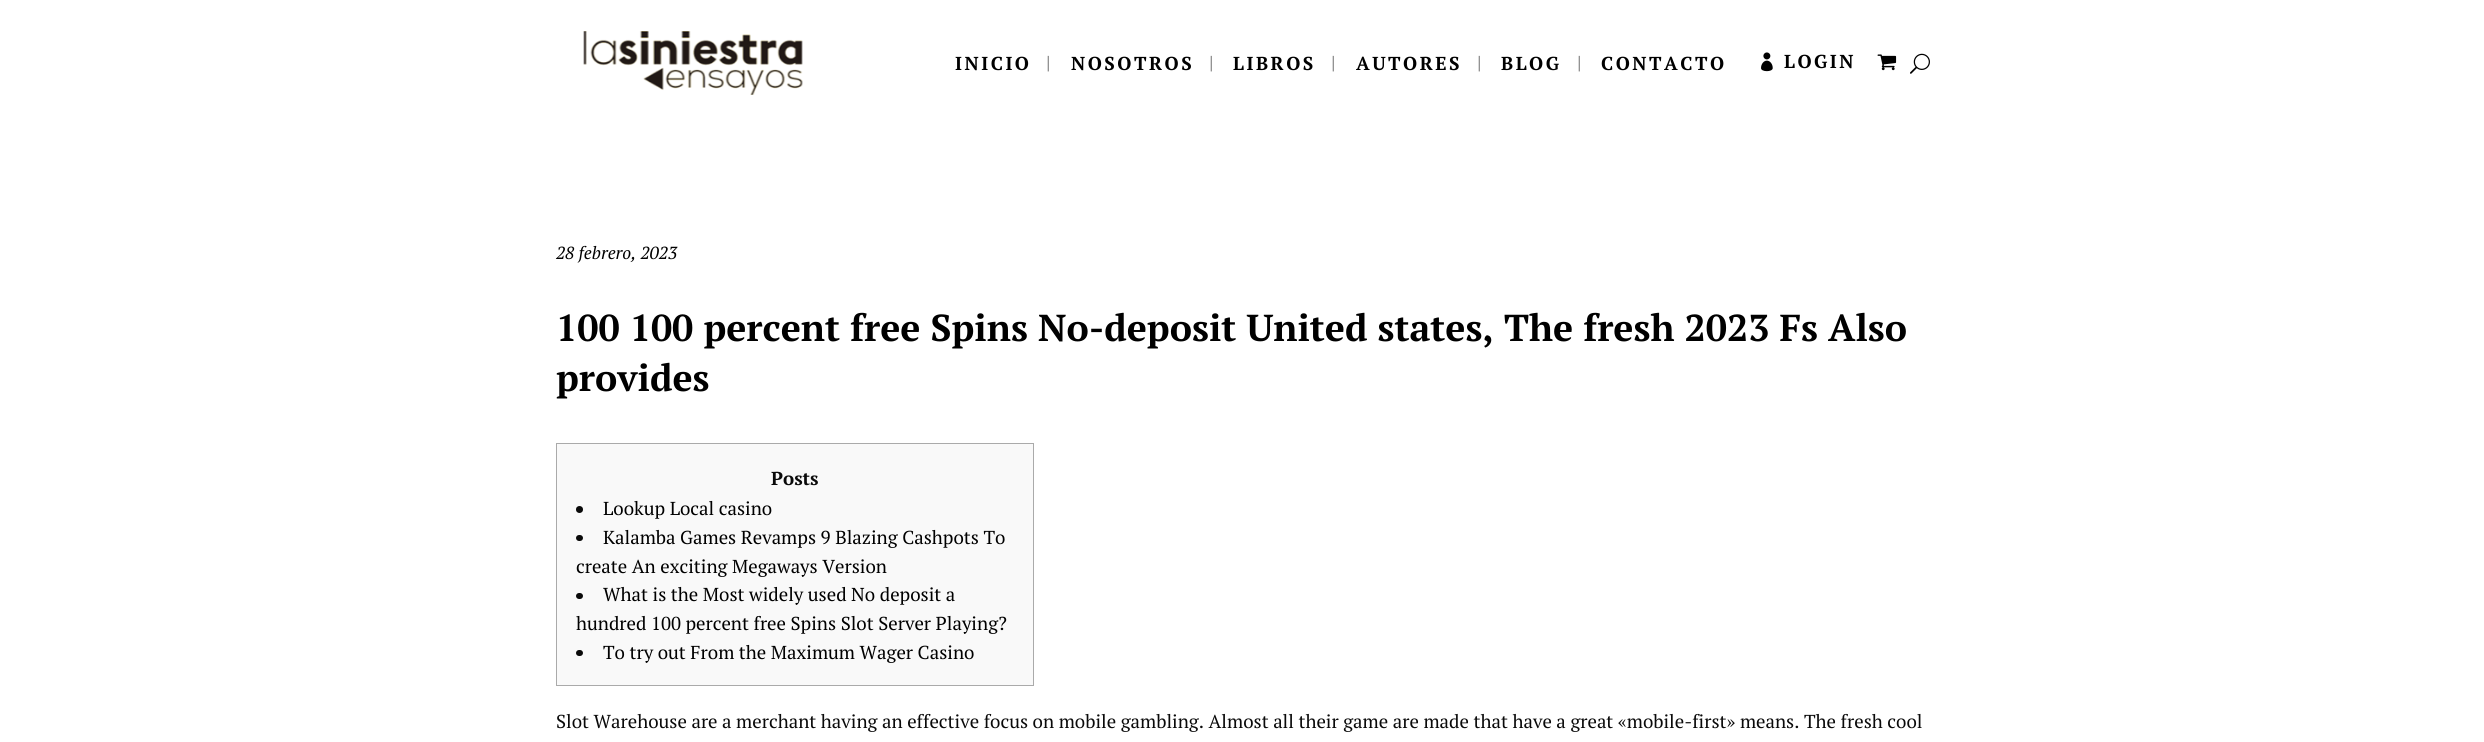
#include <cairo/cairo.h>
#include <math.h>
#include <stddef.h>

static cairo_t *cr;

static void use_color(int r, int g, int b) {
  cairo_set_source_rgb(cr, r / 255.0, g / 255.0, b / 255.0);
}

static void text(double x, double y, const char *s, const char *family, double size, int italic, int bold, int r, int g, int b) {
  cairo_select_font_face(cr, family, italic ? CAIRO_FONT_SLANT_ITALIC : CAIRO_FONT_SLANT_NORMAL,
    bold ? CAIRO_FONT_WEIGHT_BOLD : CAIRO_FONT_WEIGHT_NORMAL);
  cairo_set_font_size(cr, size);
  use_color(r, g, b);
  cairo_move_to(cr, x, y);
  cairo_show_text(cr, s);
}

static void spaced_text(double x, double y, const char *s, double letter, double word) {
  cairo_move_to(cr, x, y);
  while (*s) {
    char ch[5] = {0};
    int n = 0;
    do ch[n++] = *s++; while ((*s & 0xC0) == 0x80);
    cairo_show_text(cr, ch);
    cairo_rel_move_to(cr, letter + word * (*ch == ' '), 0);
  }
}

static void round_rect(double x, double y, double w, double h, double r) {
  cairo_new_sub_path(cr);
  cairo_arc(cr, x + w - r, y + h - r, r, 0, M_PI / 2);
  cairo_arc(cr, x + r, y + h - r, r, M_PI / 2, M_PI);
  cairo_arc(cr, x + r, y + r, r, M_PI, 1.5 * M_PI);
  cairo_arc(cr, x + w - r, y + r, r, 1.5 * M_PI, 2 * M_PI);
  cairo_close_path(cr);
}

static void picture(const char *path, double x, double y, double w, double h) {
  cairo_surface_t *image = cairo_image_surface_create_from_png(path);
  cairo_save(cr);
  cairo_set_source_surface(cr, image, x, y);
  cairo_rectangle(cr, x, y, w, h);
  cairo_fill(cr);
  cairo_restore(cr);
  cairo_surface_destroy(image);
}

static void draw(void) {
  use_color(255, 255, 255);
  cairo_paint(cr);
  picture("img_01.png", 583, 31, 220, 64);
  picture("img_02.png", 1761, 52, 12, 20);
  picture("img_03.png", 1877, 54, 20, 17);
  picture("img_04.png", 1910, 53, 20, 21);
  use_color(249, 249, 249);
  cairo_rectangle(cr, 556.5, 443.5, 477, 242);
  cairo_fill_preserve(cr);
  use_color(170, 170, 170);
  cairo_set_line_width(cr, 1);
  cairo_stroke(cr);
  use_color(10, 10, 10);
  cairo_arc(cr, 579.5, 509.5, 3.5, 0, 2 * M_PI);
  cairo_fill(cr);
  round_rect(576, 535, 7, 6, 3);
  cairo_fill(cr);
  round_rect(576, 593, 7, 6, 3);
  cairo_fill(cr);
  round_rect(576, 650, 7, 6, 3);
  cairo_fill(cr);
  cairo_select_font_face(cr, "PT Serif", CAIRO_FONT_SLANT_NORMAL, CAIRO_FONT_WEIGHT_BOLD);
  cairo_set_font_size(cr, 18.75);
  use_color(0, 0, 0);
  spaced_text(955, 70, "INICIO", 2.5, 0);
  text(1046, 69, "|", "PT Serif", 18.75, 0, 0, 105, 105, 105);
  cairo_select_font_face(cr, "PT Serif", CAIRO_FONT_SLANT_NORMAL, CAIRO_FONT_WEIGHT_BOLD);
  use_color(0, 0, 0);
  spaced_text(1071, 70, "NOSOTROS", 2.5, 0);
  text(1209, 69, "|", "PT Serif", 18.75, 0, 0, 105, 105, 105);
  cairo_select_font_face(cr, "PT Serif", CAIRO_FONT_SLANT_NORMAL, CAIRO_FONT_WEIGHT_BOLD);
  use_color(0, 0, 0);
  spaced_text(1233, 70, "LIBROS", 2.5, 0);
  text(1331, 69, "|", "PT Serif", 18.75, 0, 0, 105, 105, 105);
  cairo_select_font_face(cr, "PT Serif", CAIRO_FONT_SLANT_NORMAL, CAIRO_FONT_WEIGHT_BOLD);
  use_color(0, 0, 0);
  spaced_text(1356, 70, "AUTORES", 2.5, 0);
  text(1477, 69, "|", "PT Serif", 18.75, 0, 0, 105, 105, 105);
  cairo_select_font_face(cr, "PT Serif", CAIRO_FONT_SLANT_NORMAL, CAIRO_FONT_WEIGHT_BOLD);
  use_color(0, 0, 0);
  spaced_text(1501, 70, "BLOG", 2.5, 0);
  text(1577, 69, "|", "PT Serif", 18.75, 0, 0, 105, 105, 105);
  cairo_select_font_face(cr, "PT Serif", CAIRO_FONT_SLANT_NORMAL, CAIRO_FONT_WEIGHT_BOLD);
  use_color(0, 0, 0);
  spaced_text(1601, 70, "CONTACTO", 2.5, 0);
  spaced_text(1784, 68, "LOGIN", 2.5, 0);
  text(556, 259, "28 febrero, 2023", "PT Serif", 17.5, 1, 0, 0, 0, 0);
  text(556, 341, "100 100 percent free Spins No-deposit United states, The fresh 2023 Fs Also", "PT Serif", 37.5, 0, 1, 0, 0, 0);
  text(556, 391, "provides", "PT Serif", 37.5, 0, 1, 0, 0, 0);
  text(771, 485, "Posts", "PT Serif", 18.75, 0, 1, 10, 10, 10);
  text(603, 515, "Lookup Local casino", "PT Serif", 18.75, 0, 0, 0, 0, 0);
  text(603, 544, "Kalamba Games Revamps 9 Blazing Cashpots To", "PT Serif", 18.75, 0, 0, 0, 0, 0);
  text(576, 573, "create An exciting Megaways Version", "PT Serif", 18.75, 0, 0, 0, 0, 0);
  text(603, 601, "What is the Most widely used No deposit a", "PT Serif", 18.75, 0, 0, 0, 0, 0);
  text(576, 630, "hundred 100 percent free Spins Slot Server Playing?", "PT Serif", 18.75, 0, 0, 0, 0, 0);
  text(603, 659, "To try out From the Maximum Wager Casino", "PT Serif", 18.75, 0, 0, 0, 0, 0);
  text(556, 728, "Slot Warehouse are a merchant having an effective focus on mobile gambling. Almost all their game are made that have a great «mobile-first» means. The fresh cool", "PT Serif", 18.75, 0, 0, 10, 10, 10);
}

int main(void) {
  cairo_surface_t *surface = cairo_image_surface_create(CAIRO_FORMAT_RGB24, 2484, 742);
  cr = cairo_create(surface);
  cairo_font_options_t *options = cairo_font_options_create();
  cairo_font_options_set_hint_metrics(options, CAIRO_HINT_METRICS_OFF);
  cairo_font_options_set_hint_style(options, CAIRO_HINT_STYLE_NONE);
  cairo_set_font_options(cr, options);
  cairo_set_miter_limit(cr, 4);
  draw();
  cairo_surface_write_to_png(surface, "out.png");
  cairo_font_options_destroy(options);
  cairo_destroy(cr);
  cairo_surface_destroy(surface);
  return 0;
}
